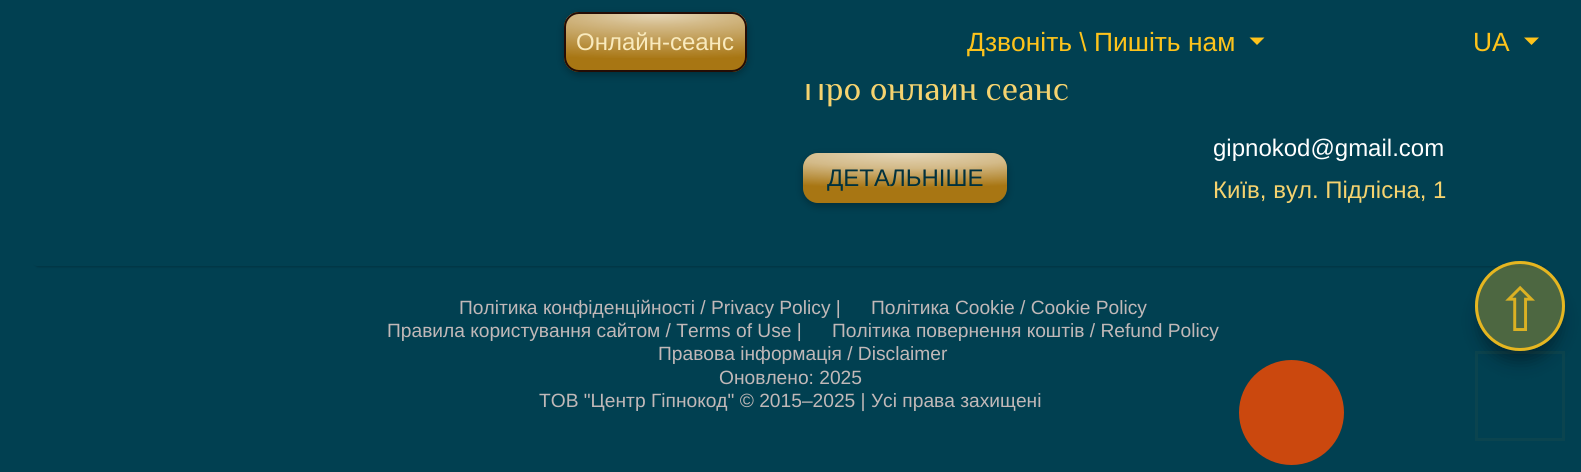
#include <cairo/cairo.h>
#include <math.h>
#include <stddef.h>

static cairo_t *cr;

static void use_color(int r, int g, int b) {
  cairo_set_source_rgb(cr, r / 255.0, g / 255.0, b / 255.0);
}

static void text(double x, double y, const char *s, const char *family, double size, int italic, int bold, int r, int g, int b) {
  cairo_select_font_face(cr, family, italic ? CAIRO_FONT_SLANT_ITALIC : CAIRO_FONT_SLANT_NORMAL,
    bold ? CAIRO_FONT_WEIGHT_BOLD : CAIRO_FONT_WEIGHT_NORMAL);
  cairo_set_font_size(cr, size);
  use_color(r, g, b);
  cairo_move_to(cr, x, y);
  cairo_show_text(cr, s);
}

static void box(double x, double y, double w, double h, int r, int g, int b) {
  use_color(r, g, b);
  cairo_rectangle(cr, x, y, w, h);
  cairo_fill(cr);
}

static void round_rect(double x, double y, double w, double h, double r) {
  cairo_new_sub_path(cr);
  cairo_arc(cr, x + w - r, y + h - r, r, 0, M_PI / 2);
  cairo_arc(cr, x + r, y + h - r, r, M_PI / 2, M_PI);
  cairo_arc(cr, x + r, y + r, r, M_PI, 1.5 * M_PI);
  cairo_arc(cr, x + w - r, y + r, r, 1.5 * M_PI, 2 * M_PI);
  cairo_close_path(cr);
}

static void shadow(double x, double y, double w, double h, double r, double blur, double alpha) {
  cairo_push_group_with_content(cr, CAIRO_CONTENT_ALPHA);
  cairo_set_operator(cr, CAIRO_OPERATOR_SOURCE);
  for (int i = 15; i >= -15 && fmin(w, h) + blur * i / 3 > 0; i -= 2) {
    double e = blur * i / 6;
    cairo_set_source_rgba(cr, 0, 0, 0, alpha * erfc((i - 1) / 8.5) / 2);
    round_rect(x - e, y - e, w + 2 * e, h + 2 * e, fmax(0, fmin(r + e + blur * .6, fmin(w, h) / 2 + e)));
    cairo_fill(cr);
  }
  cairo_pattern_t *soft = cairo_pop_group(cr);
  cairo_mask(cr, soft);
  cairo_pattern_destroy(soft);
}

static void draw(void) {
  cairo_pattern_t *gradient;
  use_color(1, 64, 81);
  cairo_paint(cr);
  cairo_save(cr);
  cairo_set_fill_rule(cr, CAIRO_FILL_RULE_EVEN_ODD);
  cairo_new_path(cr);
  cairo_move_to(cr, 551, 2);
  cairo_line_to(cr, 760, 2);
  cairo_line_to(cr, 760, 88);
  cairo_line_to(cr, 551, 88);
  cairo_close_path(cr);
  cairo_move_to(cr, 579, 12);
  cairo_line_to(cr, 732, 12);
  cairo_curve_to(cr, 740.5, 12, 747, 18.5, 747, 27);
  cairo_line_to(cr, 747, 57);
  cairo_curve_to(cr, 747, 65.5, 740.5, 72, 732, 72);
  cairo_line_to(cr, 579, 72);
  cairo_curve_to(cr, 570.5, 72, 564, 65.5, 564, 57);
  cairo_line_to(cr, 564, 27);
  cairo_curve_to(cr, 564, 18.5, 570.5, 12, 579, 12);
  cairo_close_path(cr);
  cairo_clip(cr);
  use_color(0, 0, 0);
  shadow(564, 15, 183, 60, 15, 4, 0.3);
  cairo_restore(cr);
  cairo_save(cr);
  cairo_set_fill_rule(cr, CAIRO_FILL_RULE_EVEN_ODD);
  cairo_new_path(cr);
  cairo_move_to(cr, 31, 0);
  cairo_line_to(cr, 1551, 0);
  cairo_line_to(cr, 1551, 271);
  cairo_line_to(cr, 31, 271);
  cairo_close_path(cr);
  cairo_move_to(cr, 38, -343);
  cairo_line_to(cr, 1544, -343);
  cairo_curve_to(cr, 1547.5, -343, 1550, -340.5, 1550, -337);
  cairo_line_to(cr, 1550, 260);
  cairo_curve_to(cr, 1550, 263.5, 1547.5, 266, 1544, 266);
  cairo_line_to(cr, 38, 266);
  cairo_curve_to(cr, 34.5, 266, 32, 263.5, 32, 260);
  cairo_line_to(cr, 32, -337);
  cairo_curve_to(cr, 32, -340.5, 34.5, -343, 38, -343);
  cairo_close_path(cr);
  cairo_clip(cr);
  use_color(0, 0, 0);
  shadow(35, -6, 1512, 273, 3, 1, 0.2);
  cairo_restore(cr);
  cairo_set_source_rgba(cr, 0.702, 0.475, 0.059, 0.94);
  round_rect(564, 12, 183, 60, 15);
  cairo_fill(cr);
  cairo_save(cr);
  round_rect(564, 12, 183, 60, 15);
  cairo_clip(cr);
  gradient = cairo_pattern_create_radial(0, 0, 0, 0, 0, 1);
  cairo_pattern_set_matrix(gradient, &(cairo_matrix_t){1.0 / 342, 0, 0, 1.0 / 57, -1.0 * 656 / 342, -1.0 * 14 / 57});
  cairo_pattern_add_color_stop_rgba(gradient, 0, 1, 1, 1, 0.7);
  cairo_pattern_add_color_stop_rgba(gradient, 0.2, 1, 1, 1, 0.5);
  cairo_pattern_add_color_stop_rgba(gradient, 0.8, 1, 1, 1, 0);
  cairo_set_source(cr, gradient);
  cairo_pattern_destroy(gradient);
  cairo_rectangle(cr, 566, 14, 180, 44);
  cairo_fill(cr);
  cairo_restore(cr);
  round_rect(565, 13, 181, 58, 14);
  use_color(36, 12, 5);
  cairo_stroke(cr);
  use_color(254, 195, 27);
  cairo_new_path(cr);
  cairo_move_to(cr, 1249.5, 37.5);
  cairo_line_to(cr, 1264.5, 37.5);
  cairo_line_to(cr, 1257, 45);
  cairo_close_path(cr);
  cairo_fill(cr);
  cairo_new_path(cr);
  cairo_move_to(cr, 1524, 37.5);
  cairo_line_to(cr, 1539, 37.5);
  cairo_line_to(cr, 1531.5, 45);
  cairo_close_path(cr);
  cairo_fill(cr);
  cairo_save(cr);
  cairo_set_fill_rule(cr, CAIRO_FILL_RULE_EVEN_ODD);
  cairo_new_path(cr);
  cairo_move_to(cr, 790, 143);
  cairo_line_to(cr, 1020, 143);
  cairo_line_to(cr, 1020, 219);
  cairo_line_to(cr, 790, 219);
  cairo_close_path(cr);
  cairo_move_to(cr, 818, 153);
  cairo_line_to(cr, 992, 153);
  cairo_curve_to(cr, 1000.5, 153, 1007, 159.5, 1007, 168);
  cairo_line_to(cr, 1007, 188);
  cairo_curve_to(cr, 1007, 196.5, 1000.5, 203, 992, 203);
  cairo_line_to(cr, 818, 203);
  cairo_curve_to(cr, 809.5, 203, 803, 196.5, 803, 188);
  cairo_line_to(cr, 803, 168);
  cairo_curve_to(cr, 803, 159.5, 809.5, 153, 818, 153);
  cairo_close_path(cr);
  cairo_clip(cr);
  use_color(0, 0, 0);
  shadow(803, 156, 204, 50, 15, 4, 0.3);
  cairo_restore(cr);
  cairo_set_source_rgba(cr, 0.702, 0.475, 0.059, 0.94);
  round_rect(803, 153, 204, 50, 15);
  cairo_fill(cr);
  gradient = cairo_pattern_create_radial(0, 0, 0, 0, 0, 1);
  cairo_pattern_set_matrix(gradient, &(cairo_matrix_t){1.0 / 388, 0, 0, 1.0 / 50, -1.0 * 905 / 388, -1.0 * 153 / 50});
  cairo_pattern_add_color_stop_rgba(gradient, 0, 1, 1, 1, 0.7);
  cairo_pattern_add_color_stop_rgba(gradient, 0.3, 1, 1, 1, 0.5);
  cairo_pattern_add_color_stop_rgba(gradient, 0.7, 1, 1, 1, 0);
  cairo_set_source(cr, gradient);
  cairo_pattern_destroy(gradient);
  round_rect(803, 153, 204, 50, 15);
  cairo_fill(cr);
  cairo_save(cr);
  cairo_set_fill_rule(cr, CAIRO_FILL_RULE_EVEN_ODD);
  cairo_new_path(cr);
  cairo_move_to(cr, 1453, 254);
  cairo_line_to(cr, 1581, 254);
  cairo_line_to(cr, 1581, 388);
  cairo_line_to(cr, 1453, 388);
  cairo_close_path(cr);
  cairo_move_to(cr, 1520, 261);
  cairo_curve_to(cr, 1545, 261, 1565, 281, 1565, 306);
  cairo_curve_to(cr, 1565, 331, 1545, 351, 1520, 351);
  cairo_curve_to(cr, 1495, 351, 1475, 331, 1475, 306);
  cairo_curve_to(cr, 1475, 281, 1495, 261, 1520, 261);
  cairo_close_path(cr);
  cairo_clip(cr);
  use_color(0, 9, 16);
  shadow(1481, 282, 78, 78, 39, 9, 0.5);
  cairo_restore(cr);
  cairo_set_source_rgba(cr, 0.996, 0.765, 0.106, 0.3);
  cairo_arc(cr, 1520, 306, 45, 0, 2 * M_PI);
  cairo_fill(cr);
  cairo_arc(cr, 1520, 306, 43.5, 0, 2 * M_PI);
  cairo_set_source_rgba(cr, 0.996, 0.765, 0.106, 0.86);
  cairo_set_line_width(cr, 3);
  cairo_stroke(cr);
  use_color(203, 72, 14);
  cairo_arc(cr, 1291.5, 412.5, 52.5, 0, 2 * M_PI);
  cairo_fill(cr);
  cairo_rectangle(cr, 1476.5, 352.5, 87, 87);
  cairo_set_source_rgba(cr, 0.996, 0.765, 0.106, 0.04);
  cairo_stroke(cr);
  text(576, 50, "Онлайн-сеанс", "Liberation Sans", 24, 0, 0, 249, 234, 189);
  text(967, 51, "Дзвоніть \\ Пишіть нам", "Liberation Sans", 26.4, 0, 0, 254, 195, 27);
  text(1473, 51, "UA", "Liberation Sans", 26.4, 0, 0, 254, 195, 27);
  text(803, 100, "Про онлайн сеанс", "Philosopher", 33.5, 0, 0, 246, 211, 111);
  box(803, 77, 261, 7, 1, 64, 81);
  text(827, 186, "ДЕТАЛЬНІШЕ", "Liberation Sans", 24, 0, 0, 0, 49, 61);
  text(1213, 156, "gipnokod@gmail.com", "Liberation Sans", 24, 0, 0, 255, 255, 255);
  text(1213, 198, "Київ, вул. Підлісна, 1", "Liberation Sans", 24, 0, 0, 246, 211, 111);
  text(459, 314, "Політика конфіденційності / Privacy Policy |", "Liberation Sans", 19.2, 0, 0, 193, 184, 184);
  text(871, 314, "Політика Cookie / Cookie Policy", "Liberation Sans", 19.2, 0, 0, 193, 184, 184);
  text(387, 337, "Правила користування сайтом / Terms of Use |", "Liberation Sans", 19.2, 0, 0, 193, 184, 184);
  text(832, 337, "Політика повернення коштів / Refund Policy", "Liberation Sans", 19.2, 0, 0, 193, 184, 184);
  text(658, 360, "Правова інформація / Disclaimer", "Liberation Sans", 19.2, 0, 0, 193, 184, 184);
  text(719, 384, "Оновлено: 2025", "Liberation Sans", 19.2, 0, 0, 193, 184, 184);
  text(539, 407, "ТОВ \"Центр Гіпнокод\" © 2015–2025 | Усі права захищені", "Liberation Sans", 19.2, 0, 0, 193, 184, 184);
  text(1495, 331, "⇧", "DejaVu Sans", 60, 0, 0, 219, 177, 35);
}

int main(void) {
  cairo_surface_t *surface = cairo_image_surface_create(CAIRO_FORMAT_RGB24, 1581, 472);
  cr = cairo_create(surface);
  cairo_font_options_t *options = cairo_font_options_create();
  cairo_font_options_set_hint_metrics(options, CAIRO_HINT_METRICS_OFF);
  cairo_font_options_set_hint_style(options, CAIRO_HINT_STYLE_NONE);
  cairo_set_font_options(cr, options);
  cairo_set_miter_limit(cr, 4);
  draw();
  cairo_surface_write_to_png(surface, "out.png");
  cairo_font_options_destroy(options);
  cairo_destroy(cr);
  cairo_surface_destroy(surface);
  return 0;
}
